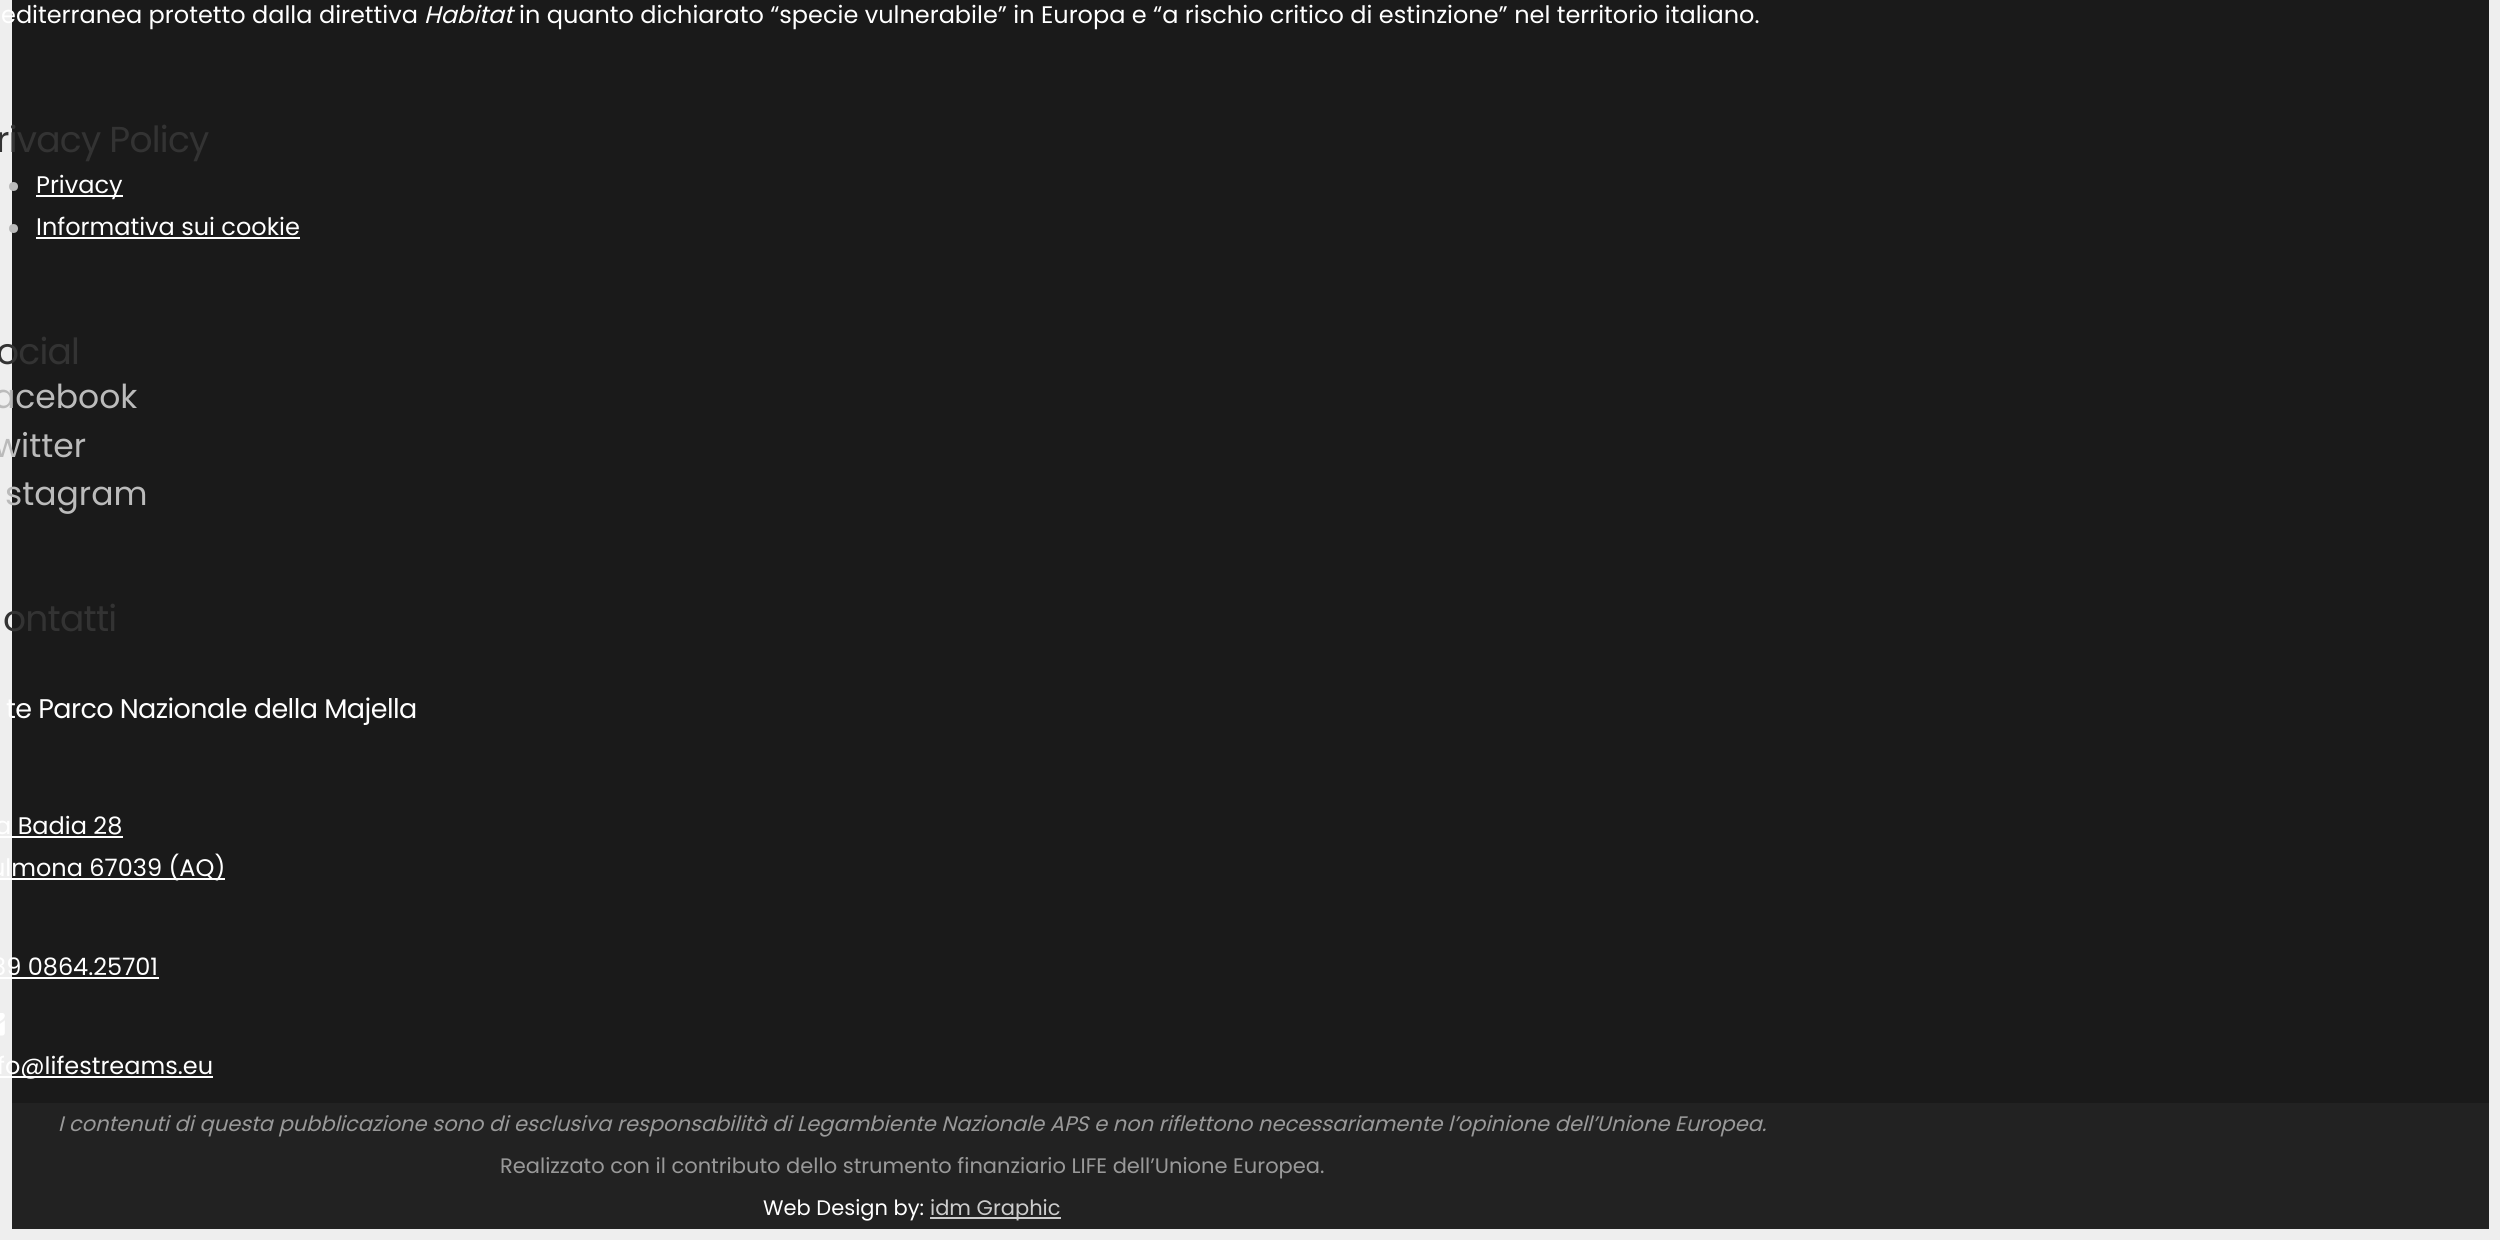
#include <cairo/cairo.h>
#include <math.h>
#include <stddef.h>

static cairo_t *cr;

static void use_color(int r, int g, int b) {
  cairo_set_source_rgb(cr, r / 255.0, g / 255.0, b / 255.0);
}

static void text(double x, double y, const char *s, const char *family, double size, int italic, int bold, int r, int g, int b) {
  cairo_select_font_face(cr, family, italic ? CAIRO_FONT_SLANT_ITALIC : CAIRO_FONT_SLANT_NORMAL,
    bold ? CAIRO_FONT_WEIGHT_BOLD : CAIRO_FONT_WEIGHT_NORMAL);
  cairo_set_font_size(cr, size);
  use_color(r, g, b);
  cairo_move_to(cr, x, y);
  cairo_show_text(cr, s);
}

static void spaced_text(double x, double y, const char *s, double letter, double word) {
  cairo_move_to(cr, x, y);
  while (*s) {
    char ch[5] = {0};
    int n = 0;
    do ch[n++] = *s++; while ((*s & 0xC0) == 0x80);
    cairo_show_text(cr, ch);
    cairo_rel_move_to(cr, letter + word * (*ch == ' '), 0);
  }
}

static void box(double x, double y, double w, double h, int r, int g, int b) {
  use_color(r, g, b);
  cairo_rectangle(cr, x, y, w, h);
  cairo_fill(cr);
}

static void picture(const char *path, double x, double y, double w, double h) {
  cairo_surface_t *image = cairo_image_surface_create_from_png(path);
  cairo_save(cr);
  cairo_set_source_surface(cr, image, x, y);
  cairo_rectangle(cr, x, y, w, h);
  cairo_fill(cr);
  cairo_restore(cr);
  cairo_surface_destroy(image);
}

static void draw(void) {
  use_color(238, 238, 238);
  cairo_paint(cr);
  box(12, 0, 2477, 1103, 26, 26, 26);
  use_color(187, 187, 187);
  cairo_arc(cr, 13.5, 186.5, 4.5, 0, 2 * M_PI);
  cairo_fill(cr);
  box(36, 195, 87, 2, 255, 255, 255);
  use_color(187, 187, 187);
  cairo_arc(cr, 13.5, 228.5, 4.5, 0, 2 * M_PI);
  cairo_fill(cr);
  box(36, 237, 264, 2, 255, 255, 255);
  box(0, 836, 123, 2, 255, 255, 255);
  box(0, 878, 225, 2, 255, 255, 255);
  box(0, 977, 159, 2, 255, 255, 255);
  picture("img_01.png", 0, 1013, 5, 23);
  box(0, 1076, 213, 2, 255, 255, 255);
  box(12, 1103, 2477, 126, 34, 34, 34);
  box(930, 1217, 131, 2, 204, 204, 204);
  text(1, 23, "editerranea protetto dalla direttiva", "Poppins", 24, 0, 0, 255, 255, 255);
  text(424, 23, "Habitat", "Poppins", 24, 1, 0, 255, 255, 255);
  text(519, 23, "in quanto dichiarato “specie vulnerabile” in Europa e “a rischio critico di estinzione” nel territorio italiano.", "Poppins", 24, 0, 0, 255, 255, 255);
  cairo_set_font_size(cr, 36);
  use_color(51, 51, 51);
  spaced_text(-4, 152, "rivacy Policy", -0.75, 0);
  text(36, 193, "Privacy", "Poppins", 24, 0, 0, 255, 255, 255);
  text(36, 235, "Informativa sui cookie", "Poppins", 24, 0, 0, 255, 255, 255);
  cairo_set_font_size(cr, 36);
  use_color(51, 51, 51);
  spaced_text(-4, 364, "ocial", -0.75, 0);
  text(-7, 408, "acebook", "Poppins", 33, 0, 0, 187, 187, 187);
  text(-6, 457, "witter", "Poppins", 33, 0, 0, 187, 187, 187);
  text(5, 505, "stagram", "Poppins", 33, 0, 0, 187, 187, 187);
  cairo_set_font_size(cr, 36);
  use_color(51, 51, 51);
  spaced_text(3, 631, "ontatti", -0.75, 0);
  cairo_set_font_size(cr, 27);
  use_color(255, 255, 255);
  spaced_text(6, 718, "te Parco Nazionale della Majella", -0.55, 0);
  text(-5, 834, "a Badia 28", "Poppins", 24, 0, 0, 255, 255, 255);
  text(-10, 876, "ulmona 67039 (AQ)", "Poppins", 24, 0, 0, 255, 255, 255);
  text(-8, 975, "39 0864.25701", "Poppins", 24, 0, 0, 255, 255, 255);
  text(-3, 1074, "fo@lifestreams.eu", "Poppins", 24, 0, 0, 255, 255, 255);
  text(58, 1131, "I contenuti di questa pubblicazione sono di esclusiva responsabilità di Legambiente Nazionale APS e non riflettono necessariamente l’opinione dell’Unione Europea.", "Poppins", 21, 1, 0, 153, 153, 153);
  text(500, 1173, "Realizzato con il contributo dello strumento finanziario LIFE dell’Unione Europea.", "Poppins", 21, 0, 0, 153, 153, 153);
  text(763, 1215, "Web Design by:", "Poppins", 21, 0, 0, 255, 255, 255);
  text(930, 1215, "idm Graphic", "Poppins", 21, 0, 0, 204, 204, 204);
}

int main(void) {
  cairo_surface_t *surface = cairo_image_surface_create(CAIRO_FORMAT_RGB24, 2500, 1240);
  cr = cairo_create(surface);
  cairo_font_options_t *options = cairo_font_options_create();
  cairo_font_options_set_hint_metrics(options, CAIRO_HINT_METRICS_OFF);
  cairo_font_options_set_hint_style(options, CAIRO_HINT_STYLE_NONE);
  cairo_set_font_options(cr, options);
  cairo_set_miter_limit(cr, 4);
  draw();
  cairo_surface_write_to_png(surface, "out.png");
  cairo_font_options_destroy(options);
  cairo_destroy(cr);
  cairo_surface_destroy(surface);
  return 0;
}
